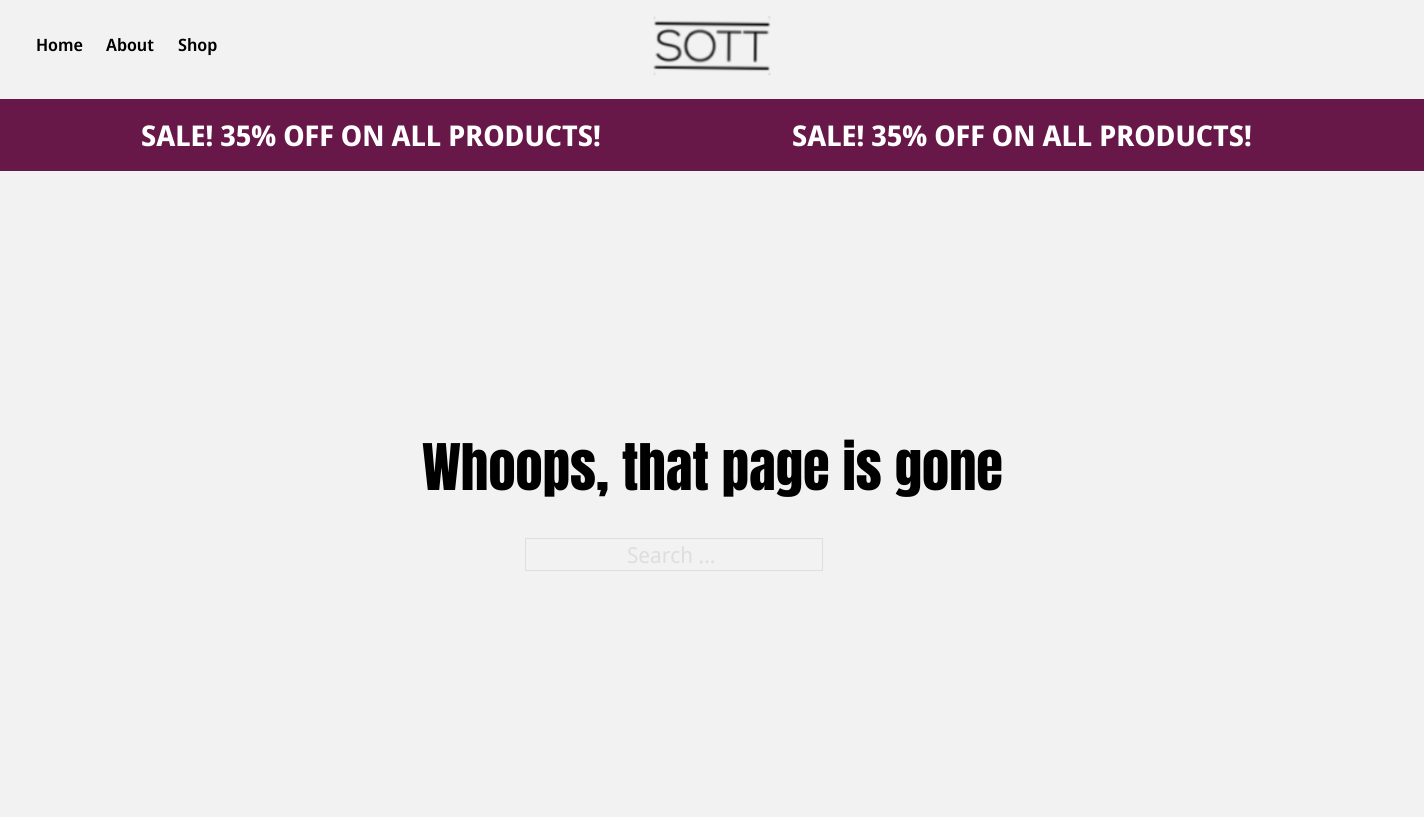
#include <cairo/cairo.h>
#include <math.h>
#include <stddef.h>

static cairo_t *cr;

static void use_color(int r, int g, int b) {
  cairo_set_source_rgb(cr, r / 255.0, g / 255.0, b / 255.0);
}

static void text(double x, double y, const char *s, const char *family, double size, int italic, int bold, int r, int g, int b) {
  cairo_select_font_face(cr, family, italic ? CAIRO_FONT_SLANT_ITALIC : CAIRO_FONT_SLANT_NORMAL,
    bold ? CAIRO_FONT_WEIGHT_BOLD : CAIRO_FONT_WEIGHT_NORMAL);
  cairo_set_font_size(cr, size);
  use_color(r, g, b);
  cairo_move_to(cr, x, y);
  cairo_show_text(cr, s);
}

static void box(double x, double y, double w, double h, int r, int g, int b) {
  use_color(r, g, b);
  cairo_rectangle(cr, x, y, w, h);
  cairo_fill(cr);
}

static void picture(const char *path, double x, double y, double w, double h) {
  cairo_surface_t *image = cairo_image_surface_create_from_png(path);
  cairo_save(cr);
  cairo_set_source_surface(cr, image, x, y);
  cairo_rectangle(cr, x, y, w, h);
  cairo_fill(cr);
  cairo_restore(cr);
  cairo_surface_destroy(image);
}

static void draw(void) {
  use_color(242, 242, 242);
  cairo_paint(cr);
  picture("img_01.png", 653, 16, 118, 59);
  box(0, 99, 1424, 72, 103, 24, 73);
  cairo_rectangle(cr, 525.5, 538.5, 297, 32);
  use_color(221, 222, 223);
  cairo_set_line_width(cr, 1);
  cairo_stroke(cr);
  text(36, 51, "Home", "Noto Sans Display SemiBold", 17, 0, 0, 0, 0, 0);
  text(106, 51, "About", "Noto Sans Display SemiBold", 17, 0, 0, 0, 0, 0);
  text(178, 51, "Shop", "Noto Sans Display SemiBold", 17, 0, 0, 0, 0, 0);
  text(141, 146, "SALE! 35% OFF ON ALL PRODUCTS!", "Noto Sans Display", 28.6, 0, 1, 255, 255, 255);
  text(792, 146, "SALE! 35% OFF ON ALL PRODUCTS!", "Noto Sans Display", 28.6, 0, 1, 255, 255, 255);
  text(422, 490, "Whoops, that page is gone", "Anton", 54.6, 0, 0, 0, 0, 0);
  text(627, 563, "Search ...", "Noto Sans Display", 22, 0, 0, 221, 222, 223);
}

int main(void) {
  cairo_surface_t *surface = cairo_image_surface_create(CAIRO_FORMAT_RGB24, 1424, 817);
  cr = cairo_create(surface);
  cairo_font_options_t *options = cairo_font_options_create();
  cairo_font_options_set_hint_metrics(options, CAIRO_HINT_METRICS_OFF);
  cairo_font_options_set_hint_style(options, CAIRO_HINT_STYLE_NONE);
  cairo_set_font_options(cr, options);
  cairo_set_miter_limit(cr, 4);
  draw();
  cairo_surface_write_to_png(surface, "out.png");
  cairo_font_options_destroy(options);
  cairo_destroy(cr);
  cairo_surface_destroy(surface);
  return 0;
}
